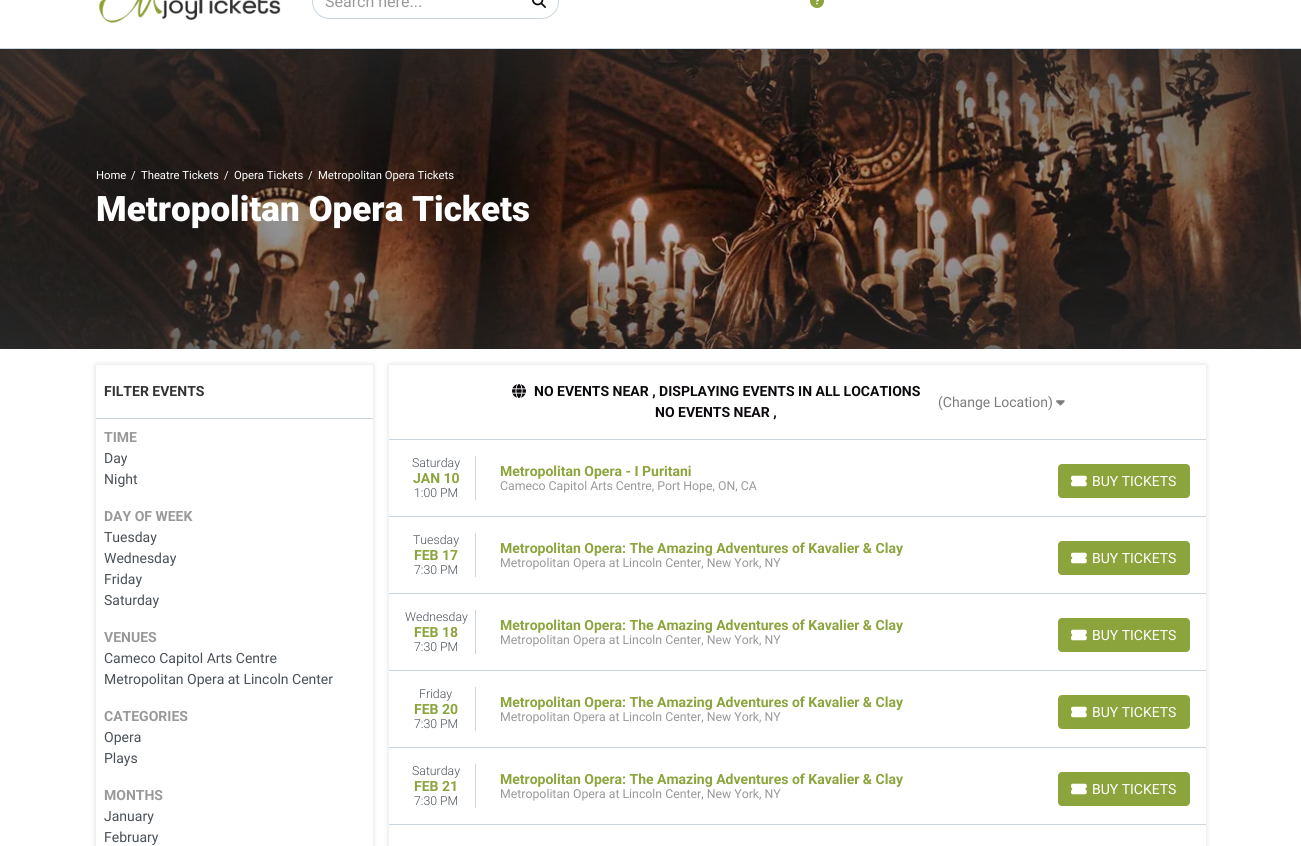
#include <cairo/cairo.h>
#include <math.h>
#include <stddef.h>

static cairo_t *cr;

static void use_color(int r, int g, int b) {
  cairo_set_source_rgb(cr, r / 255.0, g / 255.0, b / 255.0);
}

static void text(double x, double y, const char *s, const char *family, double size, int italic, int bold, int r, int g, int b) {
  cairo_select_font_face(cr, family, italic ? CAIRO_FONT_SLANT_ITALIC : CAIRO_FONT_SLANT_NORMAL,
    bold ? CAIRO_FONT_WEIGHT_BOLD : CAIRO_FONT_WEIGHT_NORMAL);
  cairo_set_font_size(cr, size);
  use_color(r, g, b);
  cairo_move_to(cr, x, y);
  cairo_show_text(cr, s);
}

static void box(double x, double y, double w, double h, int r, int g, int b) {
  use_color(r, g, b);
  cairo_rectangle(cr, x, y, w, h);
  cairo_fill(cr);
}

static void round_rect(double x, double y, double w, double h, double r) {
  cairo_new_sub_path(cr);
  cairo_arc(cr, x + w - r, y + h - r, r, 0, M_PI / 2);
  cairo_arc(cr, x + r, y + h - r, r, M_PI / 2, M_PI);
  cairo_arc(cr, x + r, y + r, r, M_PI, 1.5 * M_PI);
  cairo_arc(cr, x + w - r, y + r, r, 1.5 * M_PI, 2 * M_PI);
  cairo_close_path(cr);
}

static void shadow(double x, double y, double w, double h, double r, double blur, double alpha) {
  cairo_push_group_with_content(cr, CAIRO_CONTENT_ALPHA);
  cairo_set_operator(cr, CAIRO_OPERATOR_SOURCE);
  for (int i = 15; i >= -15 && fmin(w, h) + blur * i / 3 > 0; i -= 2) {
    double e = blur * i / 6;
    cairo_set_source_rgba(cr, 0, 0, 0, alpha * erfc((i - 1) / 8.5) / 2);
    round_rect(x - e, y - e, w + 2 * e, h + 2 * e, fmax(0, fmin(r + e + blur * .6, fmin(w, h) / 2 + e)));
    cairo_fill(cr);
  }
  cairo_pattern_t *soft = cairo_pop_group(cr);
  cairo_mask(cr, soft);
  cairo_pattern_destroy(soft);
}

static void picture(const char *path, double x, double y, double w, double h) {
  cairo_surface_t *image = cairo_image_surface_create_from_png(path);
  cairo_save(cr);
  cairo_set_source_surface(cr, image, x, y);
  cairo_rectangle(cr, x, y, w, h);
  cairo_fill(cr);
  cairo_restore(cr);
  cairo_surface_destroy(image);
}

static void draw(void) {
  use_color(255, 255, 255);
  cairo_paint(cr);
  box(0, 48, 1301, 1, 201, 214, 223);
  picture("img_01.png", 99, 0, 182, 23);
  cairo_new_path(cr);
  cairo_move_to(cr, 329.5, -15.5);
  cairo_line_to(cr, 520.5, -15.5);
  cairo_line_to(cr, 520.5, 18.5);
  cairo_line_to(cr, 329.5, 18.5);
  cairo_curve_to(cr, 320, 18.5, 312.5, 11, 312.5, 1.5);
  cairo_curve_to(cr, 312.5, -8, 320, -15.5, 329.5, -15.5);
  cairo_close_path(cr);
  cairo_set_line_width(cr, 1);
  cairo_stroke(cr);
  use_color(255, 255, 255);
  cairo_new_path(cr);
  cairo_move_to(cr, 520, -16);
  cairo_line_to(cr, 541.5, -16);
  cairo_curve_to(cr, 551, -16, 559, -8, 559, 1.5);
  cairo_curve_to(cr, 559, 11, 551, 19, 541.5, 19);
  cairo_line_to(cr, 520, 19);
  cairo_close_path(cr);
  cairo_fill(cr);
  use_color(201, 214, 223);
  cairo_set_fill_rule(cr, CAIRO_FILL_RULE_EVEN_ODD);
  cairo_new_path(cr);
  cairo_move_to(cr, 520, -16);
  cairo_line_to(cr, 541.5, -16);
  cairo_curve_to(cr, 551, -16, 559, -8, 559, 1.5);
  cairo_curve_to(cr, 559, 11, 551, 19, 541.5, 19);
  cairo_line_to(cr, 520, 19);
  cairo_close_path(cr);
  cairo_move_to(cr, 520, -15);
  cairo_line_to(cr, 541.5, -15);
  cairo_curve_to(cr, 550.5, -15, 558, -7.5, 558, 1.5);
  cairo_curve_to(cr, 558, 10.5, 550.5, 18, 541.5, 18);
  cairo_line_to(cr, 520, 18);
  cairo_close_path(cr);
  cairo_fill(cr);
  picture("img_02.png", 532, 0, 14, 8);
  picture("img_03.png", 810, 0, 14, 8);
  picture("img_04.png", 0, 49, 1301, 300);
  cairo_save(cr);
  cairo_new_path(cr);
  cairo_move_to(cr, 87, 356);
  cairo_line_to(cr, 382, 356);
  cairo_line_to(cr, 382, 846);
  cairo_line_to(cr, 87, 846);
  cairo_close_path(cr);
  cairo_move_to(cr, 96, 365);
  cairo_line_to(cr, 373, 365);
  cairo_line_to(cr, 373, 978);
  cairo_line_to(cr, 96, 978);
  cairo_close_path(cr);
  cairo_clip(cr);
  use_color(153, 153, 153);
  shadow(96, 365, 277, 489, 0, 2.5, 0.35);
  cairo_restore(cr);
  box(96, 418, 277, 1, 201, 214, 223);
  cairo_save(cr);
  cairo_new_path(cr);
  cairo_move_to(cr, 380, 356);
  cairo_line_to(cr, 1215, 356);
  cairo_line_to(cr, 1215, 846);
  cairo_line_to(cr, 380, 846);
  cairo_close_path(cr);
  cairo_move_to(cr, 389, 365);
  cairo_line_to(cr, 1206, 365);
  cairo_line_to(cr, 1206, 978);
  cairo_line_to(cr, 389, 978);
  cairo_close_path(cr);
  cairo_clip(cr);
  use_color(153, 153, 153);
  shadow(389, 365, 817, 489, 0, 2.5, 0.35);
  cairo_restore(cr);
  box(389, 439, 817, 1, 201, 214, 223);
  picture("img_05.png", 512, 384, 14, 14);
  picture("img_06.png", 1056, 400, 9, 6);
  box(389, 516, 817, 1, 201, 214, 223);
  box(475, 456, 1, 44, 201, 214, 223);
  use_color(140, 164, 60);
  round_rect(1058.5, 464.5, 131, 33, 3.5);
  cairo_fill_preserve(cr);
  cairo_stroke(cr);
  picture("img_07.png", 1071, 475, 16, 12);
  box(389, 593, 817, 1, 201, 214, 223);
  box(475, 533, 1, 44, 201, 214, 223);
  use_color(140, 164, 60);
  round_rect(1058.5, 541.5, 131, 33, 3.5);
  cairo_fill_preserve(cr);
  cairo_stroke(cr);
  picture("img_07.png", 1071, 552, 16, 12);
  box(389, 670, 817, 1, 201, 214, 223);
  box(475, 610, 1, 44, 201, 214, 223);
  use_color(140, 164, 60);
  round_rect(1058.5, 618.5, 131, 33, 3.5);
  cairo_fill_preserve(cr);
  cairo_stroke(cr);
  picture("img_07.png", 1071, 629, 16, 12);
  box(389, 747, 817, 1, 201, 214, 223);
  box(475, 687, 1, 44, 201, 214, 223);
  use_color(140, 164, 60);
  round_rect(1058.5, 695.5, 131, 33, 3.5);
  cairo_fill_preserve(cr);
  cairo_stroke(cr);
  picture("img_07.png", 1071, 706, 16, 12);
  box(389, 824, 817, 1, 201, 214, 223);
  box(475, 764, 1, 44, 201, 214, 223);
  use_color(140, 164, 60);
  round_rect(1058.5, 772.5, 131, 33, 3.5);
  cairo_fill_preserve(cr);
  cairo_stroke(cr);
  picture("img_07.png", 1071, 783, 16, 12);
  text(325, 7, "Search here...", "Roboto", 16, 0, 0, 153, 153, 153);
  text(96, 179, "Home", "Roboto", 11.25, 0, 0, 255, 255, 255);
  text(131, 179, "/", "Roboto", 11.25, 0, 0, 255, 255, 255);
  text(141, 179, "Theatre Tickets", "Roboto", 11.25, 0, 0, 255, 255, 255);
  text(224, 179, "/", "Roboto", 11.25, 0, 0, 255, 255, 255);
  text(234, 179, "Opera Tickets", "Roboto", 11.25, 0, 0, 255, 255, 255);
  text(308, 179, "/", "Roboto", 11.25, 0, 0, 255, 255, 255);
  text(318, 179, "Metropolitan Opera Tickets", "Roboto", 11.25, 0, 0, 255, 255, 255);
  text(96, 221, "Metropolitan Opera Tickets", "Roboto Black", 35, 0, 0, 255, 255, 255);
  text(104, 396, "FILTER EVENTS", "Roboto", 14, 0, 1, 51, 51, 51);
  text(104, 442, "TIME", "Roboto", 14, 0, 1, 153, 153, 153);
  text(104, 463, "Day", "Roboto", 14, 0, 0, 73, 80, 87);
  text(104, 484, "Night", "Roboto", 14, 0, 0, 73, 80, 87);
  text(104, 521, "DAY OF WEEK", "Roboto", 14, 0, 1, 153, 153, 153);
  text(104, 542, "Tuesday", "Roboto", 14, 0, 0, 73, 80, 87);
  text(104, 563, "Wednesday", "Roboto", 14, 0, 0, 73, 80, 87);
  text(104, 584, "Friday", "Roboto", 14, 0, 0, 73, 80, 87);
  text(104, 605, "Saturday", "Roboto", 14, 0, 0, 73, 80, 87);
  text(104, 642, "VENUES", "Roboto", 14, 0, 1, 153, 153, 153);
  text(104, 663, "Cameco Capitol Arts Centre", "Roboto", 14, 0, 0, 73, 80, 87);
  text(104, 684, "Metropolitan Opera at Lincoln Center", "Roboto", 14, 0, 0, 73, 80, 87);
  text(104, 721, "CATEGORIES", "Roboto", 14, 0, 1, 153, 153, 153);
  text(104, 742, "Opera", "Roboto", 14, 0, 0, 73, 80, 87);
  text(104, 763, "Plays", "Roboto", 14, 0, 0, 73, 80, 87);
  text(104, 800, "MONTHS", "Roboto", 14, 0, 1, 153, 153, 153);
  text(104, 821, "January", "Roboto", 14, 0, 0, 73, 80, 87);
  text(104, 842, "February", "Roboto", 14, 0, 0, 73, 80, 87);
  text(534, 396, "NO EVENTS NEAR , DISPLAYING EVENTS IN ALL LOCATIONS", "Roboto", 14, 0, 1, 12, 9, 13);
  text(655, 417, "NO EVENTS NEAR ,", "Roboto", 14, 0, 1, 12, 9, 13);
  text(938, 407, "(Change Location)", "Roboto", 14, 0, 0, 124, 124, 124);
  text(412, 467, "Saturday", "Roboto Light", 12.3, 0, 0, 73, 80, 87);
  text(413, 483, "JAN 10", "Roboto", 14, 0, 1, 140, 164, 60);
  text(414, 497, "1:00 PM", "Roboto Light", 12.3, 0, 0, 73, 80, 87);
  text(500, 476, "Metropolitan Opera - I Puritani", "Roboto", 14, 0, 1, 140, 164, 60);
  text(500, 490, "Cameco Capitol Arts Centre, Port Hope, ON, CA", "Roboto", 12.3, 0, 0, 153, 153, 153);
  text(1092, 486, "BUY TICKETS", "Roboto", 14, 0, 0, 255, 255, 255);
  text(413, 544, "Tuesday", "Roboto Light", 12.3, 0, 0, 73, 80, 87);
  text(414, 560, "FEB 17", "Roboto", 14, 0, 1, 140, 164, 60);
  text(414, 574, "7:30 PM", "Roboto Light", 12.3, 0, 0, 73, 80, 87);
  text(500, 553, "Metropolitan Opera: The Amazing Adventures of Kavalier & Clay", "Roboto", 14, 0, 1, 140, 164, 60);
  text(500, 567, "Metropolitan Opera at Lincoln Center, New York, NY", "Roboto", 12.3, 0, 0, 153, 153, 153);
  text(1092, 563, "BUY TICKETS", "Roboto", 14, 0, 0, 255, 255, 255);
  text(405, 621, "Wednesday", "Roboto Light", 12.3, 0, 0, 73, 80, 87);
  text(414, 637, "FEB 18", "Roboto", 14, 0, 1, 140, 164, 60);
  text(414, 651, "7:30 PM", "Roboto Light", 12.3, 0, 0, 73, 80, 87);
  text(500, 630, "Metropolitan Opera: The Amazing Adventures of Kavalier & Clay", "Roboto", 14, 0, 1, 140, 164, 60);
  text(500, 644, "Metropolitan Opera at Lincoln Center, New York, NY", "Roboto", 12.3, 0, 0, 153, 153, 153);
  text(1092, 640, "BUY TICKETS", "Roboto", 14, 0, 0, 255, 255, 255);
  text(419, 698, "Friday", "Roboto Light", 12.3, 0, 0, 73, 80, 87);
  text(414, 714, "FEB 20", "Roboto", 14, 0, 1, 140, 164, 60);
  text(414, 728, "7:30 PM", "Roboto Light", 12.3, 0, 0, 73, 80, 87);
  text(500, 707, "Metropolitan Opera: The Amazing Adventures of Kavalier & Clay", "Roboto", 14, 0, 1, 140, 164, 60);
  text(500, 721, "Metropolitan Opera at Lincoln Center, New York, NY", "Roboto", 12.3, 0, 0, 153, 153, 153);
  text(1092, 717, "BUY TICKETS", "Roboto", 14, 0, 0, 255, 255, 255);
  text(412, 775, "Saturday", "Roboto Light", 12.3, 0, 0, 73, 80, 87);
  text(414, 791, "FEB 21", "Roboto", 14, 0, 1, 140, 164, 60);
  text(414, 805, "7:30 PM", "Roboto Light", 12.3, 0, 0, 73, 80, 87);
  text(500, 784, "Metropolitan Opera: The Amazing Adventures of Kavalier & Clay", "Roboto", 14, 0, 1, 140, 164, 60);
  text(500, 798, "Metropolitan Opera at Lincoln Center, New York, NY", "Roboto", 12.3, 0, 0, 153, 153, 153);
  text(1092, 794, "BUY TICKETS", "Roboto", 14, 0, 0, 255, 255, 255);
}

int main(void) {
  cairo_surface_t *surface = cairo_image_surface_create(CAIRO_FORMAT_RGB24, 1301, 846);
  cr = cairo_create(surface);
  cairo_font_options_t *options = cairo_font_options_create();
  cairo_font_options_set_hint_metrics(options, CAIRO_HINT_METRICS_OFF);
  cairo_font_options_set_hint_style(options, CAIRO_HINT_STYLE_NONE);
  cairo_set_font_options(cr, options);
  cairo_set_miter_limit(cr, 4);
  draw();
  cairo_surface_write_to_png(surface, "out.png");
  cairo_font_options_destroy(options);
  cairo_destroy(cr);
  cairo_surface_destroy(surface);
  return 0;
}
